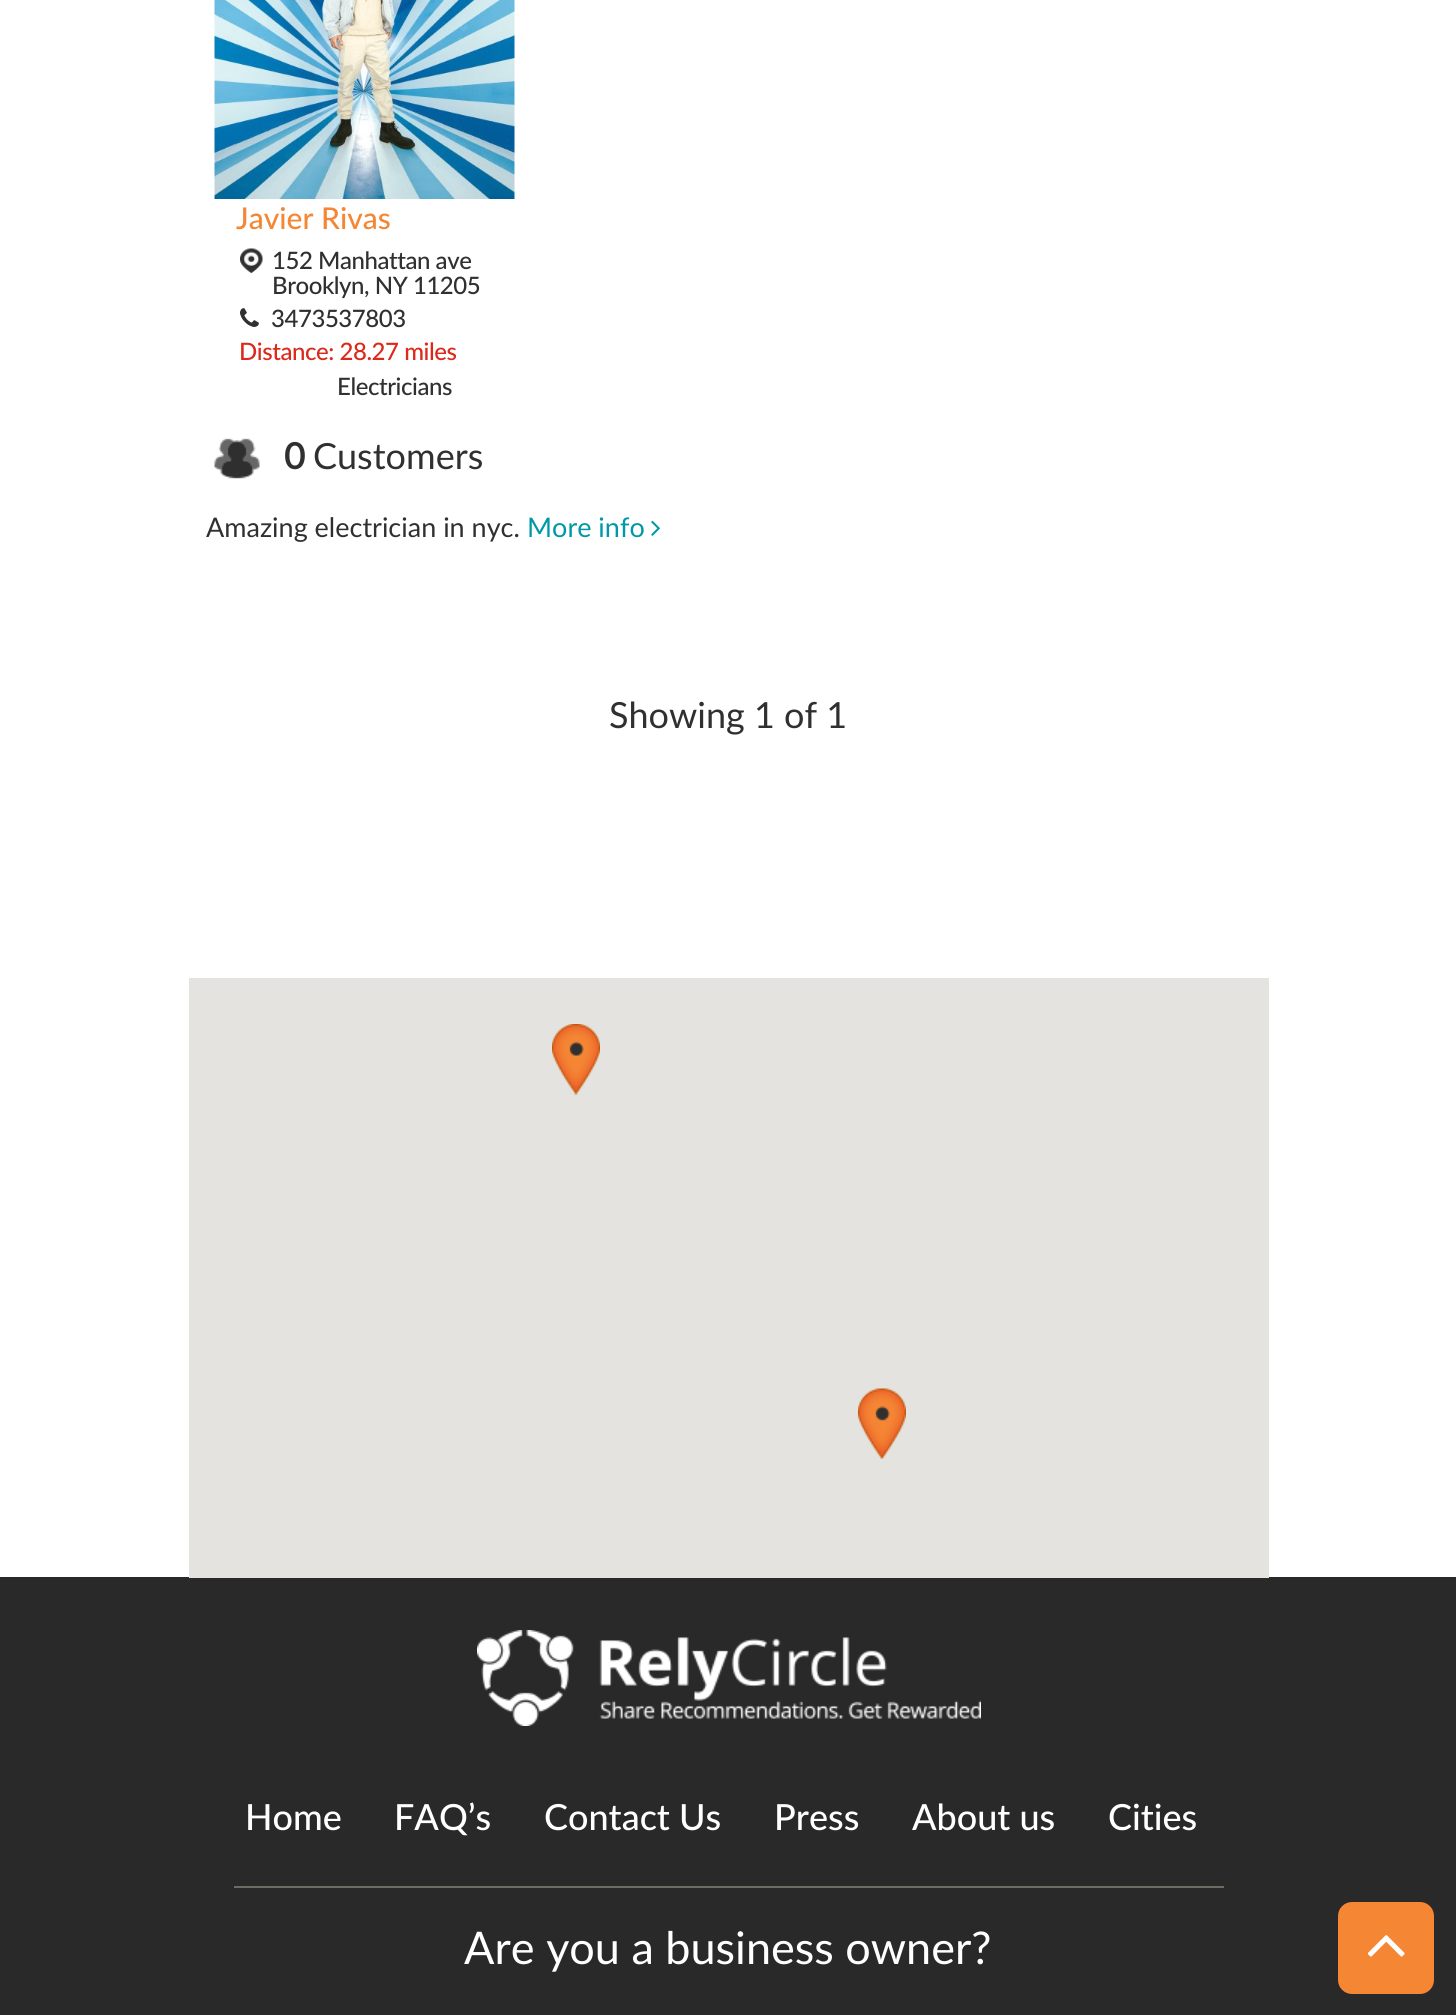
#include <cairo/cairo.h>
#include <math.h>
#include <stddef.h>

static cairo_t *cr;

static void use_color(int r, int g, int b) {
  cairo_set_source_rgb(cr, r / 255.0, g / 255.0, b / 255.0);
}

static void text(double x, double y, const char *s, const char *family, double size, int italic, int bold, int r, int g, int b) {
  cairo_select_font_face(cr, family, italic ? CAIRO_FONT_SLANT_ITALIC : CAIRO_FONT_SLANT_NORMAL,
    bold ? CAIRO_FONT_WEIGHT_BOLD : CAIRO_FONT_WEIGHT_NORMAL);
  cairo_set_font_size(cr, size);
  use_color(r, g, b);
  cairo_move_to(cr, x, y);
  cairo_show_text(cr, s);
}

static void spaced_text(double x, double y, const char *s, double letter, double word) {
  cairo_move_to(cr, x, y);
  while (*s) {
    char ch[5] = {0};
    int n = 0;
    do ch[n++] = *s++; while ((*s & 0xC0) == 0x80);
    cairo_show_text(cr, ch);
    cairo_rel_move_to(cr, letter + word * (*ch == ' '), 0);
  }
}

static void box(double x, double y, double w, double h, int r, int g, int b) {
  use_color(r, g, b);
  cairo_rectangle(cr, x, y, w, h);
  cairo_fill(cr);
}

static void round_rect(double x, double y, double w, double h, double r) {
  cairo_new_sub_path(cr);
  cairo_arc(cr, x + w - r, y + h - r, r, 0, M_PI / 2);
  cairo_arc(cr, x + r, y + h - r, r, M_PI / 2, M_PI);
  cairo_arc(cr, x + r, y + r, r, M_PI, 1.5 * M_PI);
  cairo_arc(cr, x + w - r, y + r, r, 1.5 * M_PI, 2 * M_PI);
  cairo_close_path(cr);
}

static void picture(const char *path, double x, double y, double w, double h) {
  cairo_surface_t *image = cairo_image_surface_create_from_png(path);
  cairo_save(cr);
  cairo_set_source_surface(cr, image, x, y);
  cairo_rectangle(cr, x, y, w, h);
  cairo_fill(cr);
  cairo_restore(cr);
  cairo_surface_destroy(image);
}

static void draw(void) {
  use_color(255, 255, 255);
  cairo_paint(cr);
  picture("img_01.png", 214, 0, 301, 199);
  picture("img_02.png", 240, 248, 23, 25);
  picture("img_03.png", 240, 308, 19, 19);
  picture("img_04.png", 214, 438, 46, 41);
  picture("img_05.png", 651, 520, 9, 16);
  box(0, 1577, 1456, 438, 41, 41, 41);
  box(189, 978, 1080, 600, 229, 227, 223);
  picture("img_06.png", 552, 1024, 48, 71);
  picture("img_07.png", 858, 1388, 48, 71);
  picture("img_08.png", 477, 1630, 504, 96);
  box(234, 1886, 990, 2, 108, 108, 99);
  use_color(245, 134, 52);
  round_rect(1338, 1902, 96, 92, 14);
  cairo_fill(cr);
  picture("img_09.png", 1367, 1935, 38, 22);
  text(236, 229, "Javier Rivas", "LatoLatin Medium", 30, 0, 0, 245, 134, 52);
  cairo_set_font_size(cr, 24);
  use_color(48, 48, 48);
  spaced_text(272, 269, "152 Manhattan ave", -0.45, 0);
  spaced_text(272, 294, "Brooklyn, NY 11205", -0.45, 0);
  spaced_text(271, 327, "3473537803", -0.45, 0);
  use_color(219, 41, 28);
  spaced_text(239, 360, "Distance: 28.27 miles", -0.45, 0);
  use_color(48, 48, 48);
  spaced_text(337, 395, "Electricians", -0.45, 0);
  text(284, 469, "0", "LatoLatin", 36, 0, 1, 48, 48, 48);
  text(313, 469, "Customers", "LatoLatin", 36, 0, 0, 48, 48, 48);
  text(206, 537, "Amazing electrician in nyc.", "LatoLatin", 27, 0, 0, 48, 48, 48);
  text(527, 537, "More info", "LatoLatin", 27, 0, 0, 0, 152, 166);
  text(609, 728, "Showing 1 of 1", "LatoLatin", 36, 0, 0, 48, 48, 48);
  text(245, 1830, "Home", "LatoLatin Medium", 36, 0, 0, 255, 255, 255);
  text(394, 1830, "FAQ’s", "LatoLatin Medium", 36, 0, 0, 255, 255, 255);
  text(544, 1830, "Contact Us", "LatoLatin Medium", 36, 0, 0, 255, 255, 255);
  text(774, 1830, "Press", "LatoLatin Medium", 36, 0, 0, 255, 255, 255);
  text(912, 1830, "About us", "LatoLatin Medium", 36, 0, 0, 255, 255, 255);
  text(1108, 1830, "Cities", "LatoLatin Medium", 36, 0, 0, 255, 255, 255);
  text(464, 1964, "Are you a business owner?", "LatoLatin", 45, 0, 0, 255, 255, 255);
}

int main(void) {
  cairo_surface_t *surface = cairo_image_surface_create(CAIRO_FORMAT_RGB24, 1456, 2015);
  cr = cairo_create(surface);
  cairo_font_options_t *options = cairo_font_options_create();
  cairo_font_options_set_hint_metrics(options, CAIRO_HINT_METRICS_OFF);
  cairo_font_options_set_hint_style(options, CAIRO_HINT_STYLE_NONE);
  cairo_set_font_options(cr, options);
  cairo_set_miter_limit(cr, 4);
  draw();
  cairo_surface_write_to_png(surface, "out.png");
  cairo_font_options_destroy(options);
  cairo_destroy(cr);
  cairo_surface_destroy(surface);
  return 0;
}
